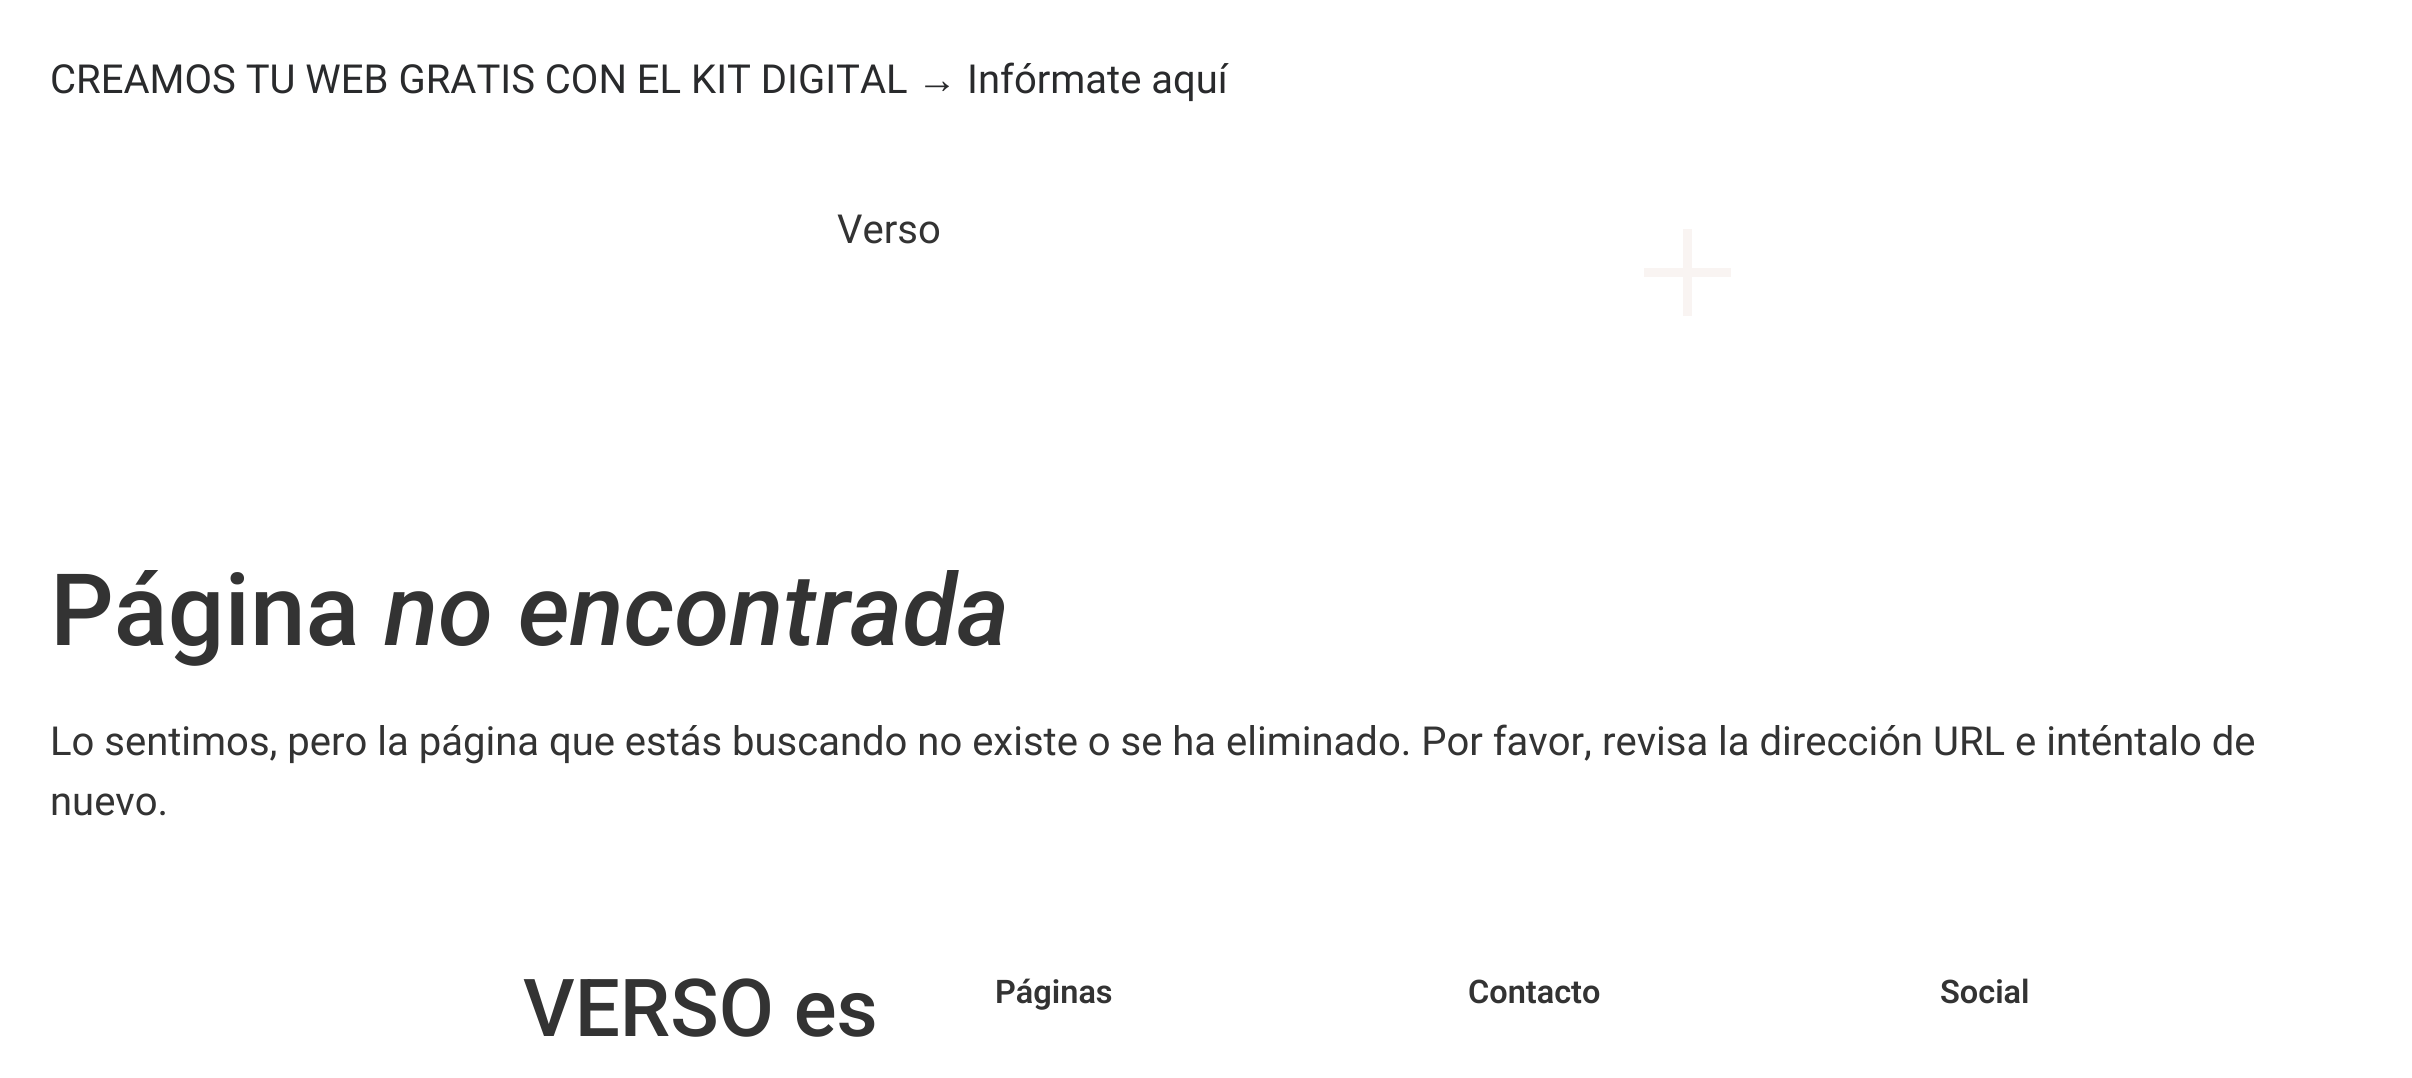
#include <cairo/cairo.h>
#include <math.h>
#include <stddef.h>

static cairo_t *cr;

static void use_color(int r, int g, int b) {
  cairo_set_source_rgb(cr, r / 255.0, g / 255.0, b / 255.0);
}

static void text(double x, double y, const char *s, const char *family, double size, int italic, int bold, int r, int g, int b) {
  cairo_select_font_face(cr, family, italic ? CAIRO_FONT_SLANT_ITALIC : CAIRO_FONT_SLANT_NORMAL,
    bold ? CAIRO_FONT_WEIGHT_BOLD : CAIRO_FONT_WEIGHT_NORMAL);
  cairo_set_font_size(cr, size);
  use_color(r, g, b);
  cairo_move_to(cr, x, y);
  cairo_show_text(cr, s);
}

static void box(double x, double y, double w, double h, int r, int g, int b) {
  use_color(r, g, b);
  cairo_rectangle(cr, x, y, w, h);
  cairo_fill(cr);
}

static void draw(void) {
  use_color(255, 255, 255);
  cairo_paint(cr);
  box(1644, 268, 87, 9, 249, 244, 242);
  box(1683, 229, 9, 87, 249, 244, 242);
  text(50, 93, "CREAMOS TU WEB GRATIS CON EL KIT DIGITAL", "Roboto", 40, 0, 0, 41, 42, 44);
  text(917, 93, "→", "Liberation Sans", 40, 0, 0, 41, 42, 44);
  text(967, 93, "Infórmate aquí", "Roboto", 40, 0, 0, 41, 42, 44);
  text(837, 243, "Verso", "Roboto", 40, 0, 0, 51, 51, 51);
  text(50, 645, "Página", "Roboto Medium", 100, 0, 0, 51, 51, 51);
  text(384, 645, "no encontrada", "Roboto Medium", 100, 1, 0, 51, 51, 51);
  text(50, 755, "Lo sentimos, pero la página que estás buscando no existe o se ha eliminado. Por favor, revisa la dirección URL e inténtalo de", "Roboto", 40, 0, 0, 51, 51, 51);
  text(50, 815, "nuevo.", "Roboto", 40, 0, 0, 51, 51, 51);
  text(523, 1036, "VERSO es", "Roboto Medium", 80, 0, 0, 51, 51, 51);
  text(995, 1003, "Páginas", "Roboto SemiBold", 32.5, 0, 0, 51, 51, 51);
  text(1468, 1003, "Contacto", "Roboto SemiBold", 32.5, 0, 0, 51, 51, 51);
  text(1940, 1003, "Social", "Roboto SemiBold", 32.5, 0, 0, 51, 51, 51);
}

int main(void) {
  cairo_surface_t *surface = cairo_image_surface_create(CAIRO_FORMAT_RGB24, 2412, 1078);
  cr = cairo_create(surface);
  cairo_font_options_t *options = cairo_font_options_create();
  cairo_font_options_set_hint_metrics(options, CAIRO_HINT_METRICS_OFF);
  cairo_font_options_set_hint_style(options, CAIRO_HINT_STYLE_NONE);
  cairo_set_font_options(cr, options);
  cairo_set_miter_limit(cr, 4);
  draw();
  cairo_surface_write_to_png(surface, "out.png");
  cairo_font_options_destroy(options);
  cairo_destroy(cr);
  cairo_surface_destroy(surface);
  return 0;
}
